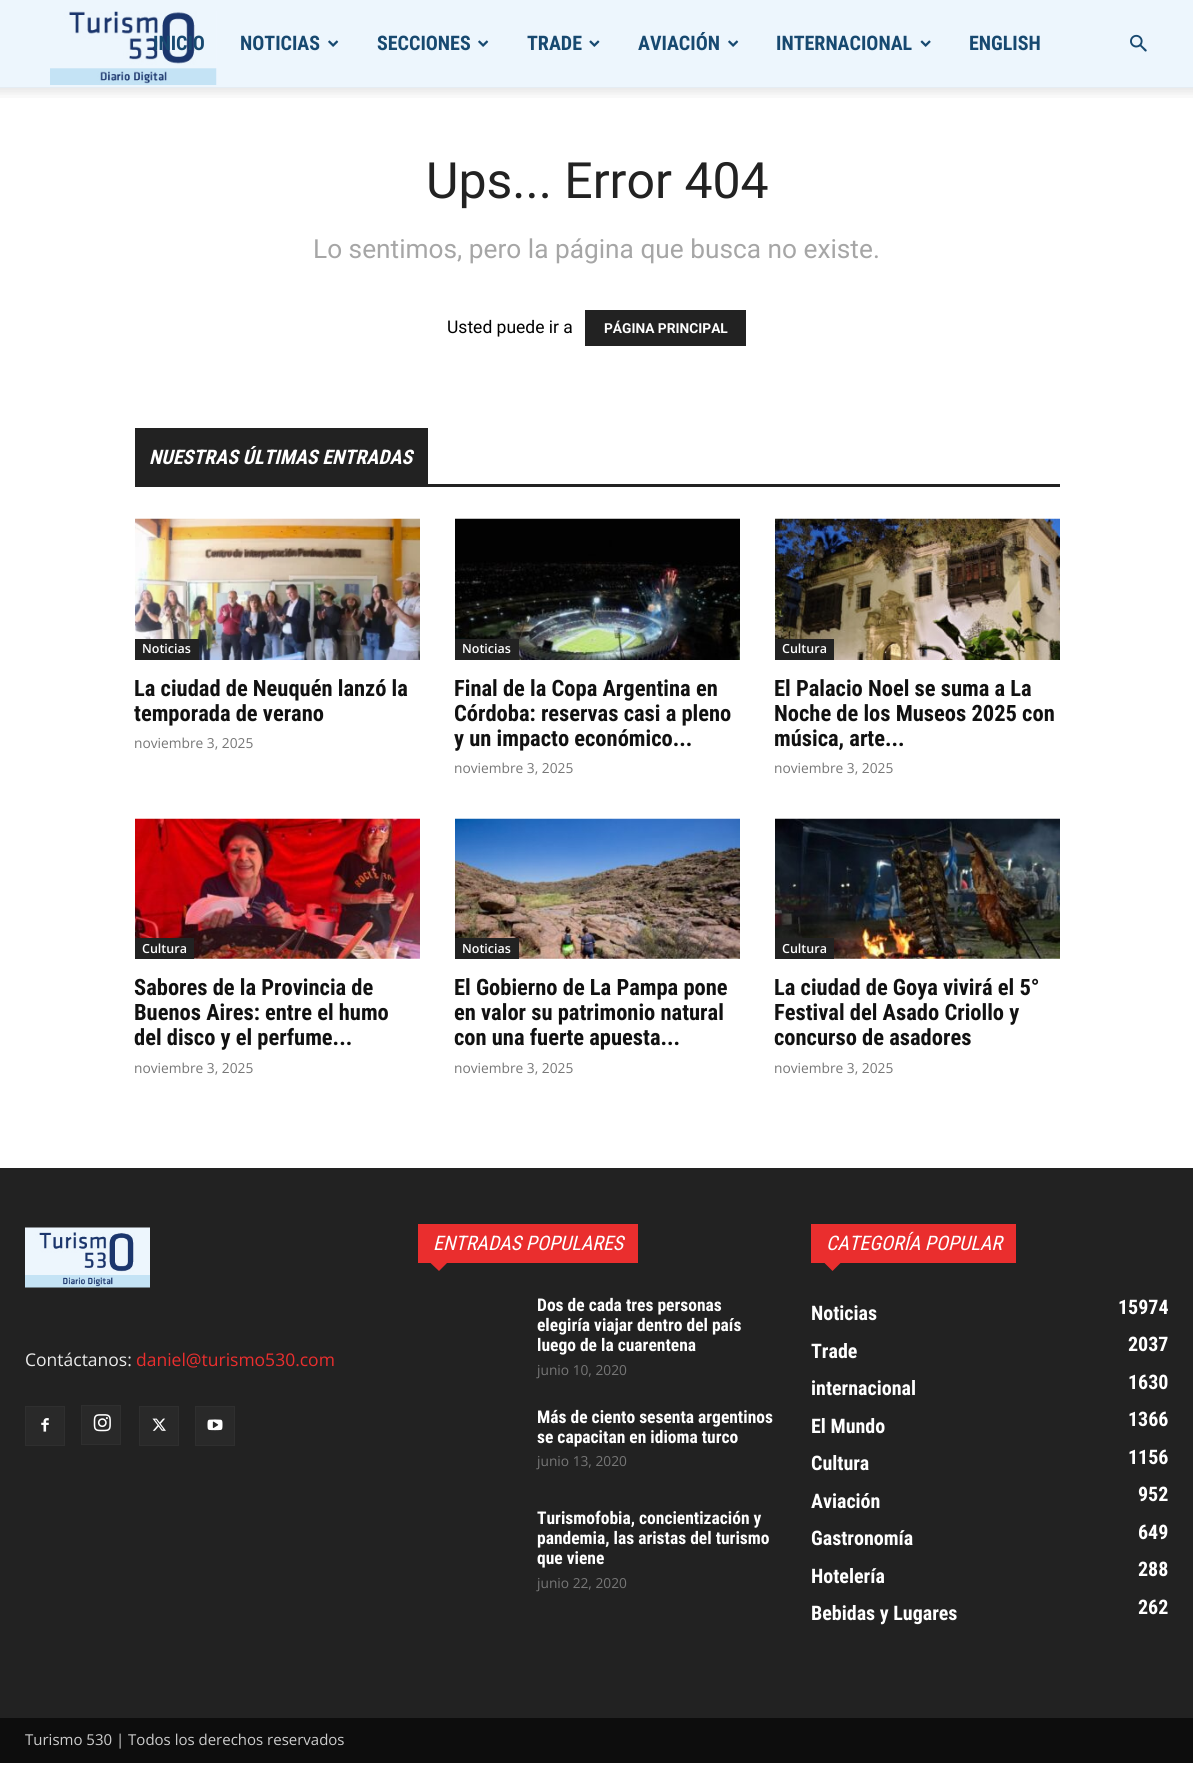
#include <cairo/cairo.h>
#include <math.h>
#include <stddef.h>

static cairo_t *cr;

static void use_color(int r, int g, int b) {
  cairo_set_source_rgb(cr, r / 255.0, g / 255.0, b / 255.0);
}

static void text(double x, double y, const char *s, const char *family, double size, int italic, int bold, int r, int g, int b) {
  cairo_select_font_face(cr, family, italic ? CAIRO_FONT_SLANT_ITALIC : CAIRO_FONT_SLANT_NORMAL,
    bold ? CAIRO_FONT_WEIGHT_BOLD : CAIRO_FONT_WEIGHT_NORMAL);
  cairo_set_font_size(cr, size);
  use_color(r, g, b);
  cairo_move_to(cr, x, y);
  cairo_show_text(cr, s);
}

static void box(double x, double y, double w, double h, int r, int g, int b) {
  use_color(r, g, b);
  cairo_rectangle(cr, x, y, w, h);
  cairo_fill(cr);
}

static void picture(const char *path, double x, double y, double w, double h) {
  cairo_surface_t *image = cairo_image_surface_create_from_png(path);
  cairo_save(cr);
  cairo_set_source_surface(cr, image, x, y);
  cairo_rectangle(cr, x, y, w, h);
  cairo_fill(cr);
  cairo_restore(cr);
  cairo_surface_destroy(image);
}

static void draw(void) {
  use_color(255, 255, 255);
  cairo_paint(cr);
  box(0, 0, 1193, 88, 237, 246, 253);
  picture("img_01.png", 50, 11, 167, 74);
  picture("img_02.png", 328, 40, 11, 7);
  picture("img_02.png", 478, 40, 11, 7);
  picture("img_03.png", 589, 40, 11, 7);
  picture("img_02.png", 728, 40, 11, 7);
  picture("img_04.png", 920, 40, 11, 7);
  picture("img_05.png", 1130, 34, 17, 18);
  picture("img_06.png", 0, 87, 1193, 11);
  box(585, 310, 161, 36, 34, 34, 34);
  box(135, 484, 925, 3, 34, 34, 34);
  box(135, 428, 293, 56, 34, 34, 34);
  picture("img_07.png", 135, 518, 285, 142);
  box(135, 639, 64, 21, 34, 34, 34);
  picture("img_08.png", 455, 518, 285, 142);
  box(455, 639, 64, 21, 34, 34, 34);
  picture("img_09.png", 775, 518, 285, 142);
  box(775, 639, 59, 21, 34, 34, 34);
  picture("img_10.png", 135, 818, 285, 141);
  box(135, 938, 59, 21, 34, 34, 34);
  picture("img_11.png", 455, 818, 285, 141);
  box(455, 938, 64, 21, 34, 34, 34);
  picture("img_12.png", 775, 818, 285, 141);
  box(775, 938, 59, 21, 34, 34, 34);
  box(0, 1168, 1193, 550, 34, 34, 34);
  picture("img_13.png", 25, 1227, 125, 61);
  box(26, 1407, 38, 38, 41, 41, 41);
  picture("img_14.png", 41, 1418, 8, 14);
  cairo_rectangle(cr, 25.5, 1406.5, 39, 39);
  use_color(47, 47, 47);
  cairo_set_line_width(cr, 1);
  cairo_stroke(cr);
  box(82, 1406, 38, 38, 41, 41, 41);
  picture("img_15.png", 93, 1414, 18, 18);
  cairo_rectangle(cr, 81.5, 1405.5, 39, 39);
  use_color(47, 47, 47);
  cairo_stroke(cr);
  box(140, 1407, 38, 38, 41, 41, 41);
  picture("img_16.png", 152, 1418, 14, 13);
  cairo_rectangle(cr, 139.5, 1406.5, 39, 39);
  use_color(47, 47, 47);
  cairo_stroke(cr);
  box(196, 1407, 38, 38, 41, 41, 41);
  picture("img_17.png", 207, 1419, 16, 12);
  cairo_rectangle(cr, 195.5, 1406.5, 39, 39);
  use_color(47, 47, 47);
  cairo_stroke(cr);
  box(418, 1224, 220, 39, 234, 46, 46);
  cairo_new_path(cr);
  cairo_move_to(cr, 430, 1262.5);
  cairo_line_to(cr, 447.5, 1262.5);
  cairo_line_to(cr, 439, 1271);
  cairo_close_path(cr);
  cairo_fill(cr);
  box(811, 1224, 205, 39, 234, 46, 46);
  cairo_new_path(cr);
  cairo_move_to(cr, 824, 1262.5);
  cairo_line_to(cr, 841, 1262.5);
  cairo_line_to(cr, 832.5, 1271);
  cairo_close_path(cr);
  cairo_fill(cr);
  box(0, 1718, 1193, 45, 13, 13, 13);
  text(153, 50, "INICIO", "Roboto Condensed", 20, 0, 1, 23, 73, 112);
  text(240, 50, "NOTICIAS", "Roboto Condensed", 20, 0, 1, 23, 73, 112);
  text(377, 50, "SECCIONES", "Roboto Condensed", 20, 0, 1, 23, 73, 112);
  text(527, 50, "TRADE", "Roboto Condensed", 20, 0, 1, 23, 73, 112);
  text(638, 50, "AVIACIÓN", "Roboto Condensed", 20, 0, 1, 23, 73, 112);
  text(776, 50, "INTERNACIONAL", "Roboto Condensed", 20, 0, 1, 23, 73, 112);
  text(969, 50, "ENGLISH", "Roboto Condensed", 20, 0, 1, 23, 73, 112);
  text(426, 198, "Ups... Error 404", "Roboto", 50, 0, 0, 34, 34, 34);
  text(313, 258, "Lo sentimos, pero la página que busca no existe.", "Roboto", 26.25, 0, 0, 166, 166, 166);
  text(447, 333, "Usted puede ir a", "Roboto", 17.5, 0, 0, 0, 0, 0);
  text(604, 333, "PÁGINA PRINCIPAL", "Roboto", 13.75, 0, 1, 255, 255, 255);
  text(149, 464, "NUESTRAS ÚLTIMAS ENTRADAS", "Roboto Condensed", 20, 1, 1, 255, 255, 255);
  text(142, 653, "Noticias", "Open Sans SemiBold", 12.5, 0, 0, 255, 255, 255);
  text(134, 696, "La ciudad de Neuquén lanzó la", "Roboto Condensed", 22.5, 0, 1, 17, 17, 17);
  text(134, 721, "temporada de verano", "Roboto Condensed", 22.5, 0, 1, 17, 17, 17);
  text(134, 748, "noviembre 3, 2025", "Open Sans", 13.75, 0, 0, 118, 118, 118);
  text(462, 653, "Noticias", "Open Sans SemiBold", 12.5, 0, 0, 255, 255, 255);
  text(454, 696, "Final de la Copa Argentina en", "Roboto Condensed", 22.5, 0, 1, 17, 17, 17);
  text(454, 721, "Córdoba: reservas casi a pleno", "Roboto Condensed", 22.5, 0, 1, 17, 17, 17);
  text(454, 746, "y un impacto económico...", "Roboto Condensed", 22.5, 0, 1, 17, 17, 17);
  text(454, 773, "noviembre 3, 2025", "Open Sans", 13.75, 0, 0, 118, 118, 118);
  text(782, 653, "Cultura", "Open Sans SemiBold", 12.5, 0, 0, 255, 255, 255);
  text(774, 696, "El Palacio Noel se suma a La", "Roboto Condensed", 22.5, 0, 1, 17, 17, 17);
  text(774, 721, "Noche de los Museos 2025 con", "Roboto Condensed", 22.5, 0, 1, 17, 17, 17);
  text(774, 746, "música, arte...", "Roboto Condensed", 22.5, 0, 1, 17, 17, 17);
  text(774, 773, "noviembre 3, 2025", "Open Sans", 13.75, 0, 0, 118, 118, 118);
  text(142, 953, "Cultura", "Open Sans SemiBold", 12.5, 0, 0, 255, 255, 255);
  text(134, 995, "Sabores de la Provincia de", "Roboto Condensed", 22.5, 0, 1, 17, 17, 17);
  text(134, 1020, "Buenos Aires: entre el humo", "Roboto Condensed", 22.5, 0, 1, 17, 17, 17);
  text(134, 1045, "del disco y el perfume...", "Roboto Condensed", 22.5, 0, 1, 17, 17, 17);
  text(134, 1073, "noviembre 3, 2025", "Open Sans", 13.75, 0, 0, 118, 118, 118);
  text(462, 953, "Noticias", "Open Sans SemiBold", 12.5, 0, 0, 255, 255, 255);
  text(454, 995, "El Gobierno de La Pampa pone", "Roboto Condensed", 22.5, 0, 1, 17, 17, 17);
  text(454, 1020, "en valor su patrimonio natural", "Roboto Condensed", 22.5, 0, 1, 17, 17, 17);
  text(454, 1045, "con una fuerte apuesta...", "Roboto Condensed", 22.5, 0, 1, 17, 17, 17);
  text(454, 1073, "noviembre 3, 2025", "Open Sans", 13.75, 0, 0, 118, 118, 118);
  text(782, 953, "Cultura", "Open Sans SemiBold", 12.5, 0, 0, 255, 255, 255);
  text(774, 995, "La ciudad de Goya vivirá el 5°", "Roboto Condensed", 22.5, 0, 1, 17, 17, 17);
  text(774, 1020, "Festival del Asado Criollo y", "Roboto Condensed", 22.5, 0, 1, 17, 17, 17);
  text(774, 1045, "concurso de asadores", "Roboto Condensed", 22.5, 0, 1, 17, 17, 17);
  text(774, 1073, "noviembre 3, 2025", "Open Sans", 13.75, 0, 0, 118, 118, 118);
  text(25, 1366, "Contáctanos:", "Open Sans", 17.5, 0, 0, 234, 234, 234);
  text(136, 1366, "daniel@turismo530.com", "Open Sans", 17.5, 0, 0, 234, 46, 46);
  text(433, 1250, "ENTRADAS POPULARES", "Roboto Condensed", 20, 1, 0, 255, 255, 255);
  text(537, 1311, "Dos de cada tres personas", "Roboto Condensed", 17.5, 0, 1, 255, 255, 255);
  text(537, 1331, "elegiría viajar dentro del país", "Roboto Condensed", 17.5, 0, 1, 255, 255, 255);
  text(537, 1351, "luego de la cuarentena", "Roboto Condensed", 17.5, 0, 1, 255, 255, 255);
  text(537, 1375, "junio 10, 2020", "Open Sans", 13.75, 0, 0, 118, 118, 118);
  text(537, 1423, "Más de ciento sesenta argentinos", "Roboto Condensed", 17.5, 0, 1, 255, 255, 255);
  text(537, 1443, "se capacitan en idioma turco", "Roboto Condensed", 17.5, 0, 1, 255, 255, 255);
  text(537, 1466, "junio 13, 2020", "Open Sans", 13.75, 0, 0, 118, 118, 118);
  text(537, 1524, "Turismofobia, concientización y", "Roboto Condensed", 17.5, 0, 1, 255, 255, 255);
  text(537, 1544, "pandemia, las aristas del turismo", "Roboto Condensed", 17.5, 0, 1, 255, 255, 255);
  text(537, 1564, "que viene", "Roboto Condensed", 17.5, 0, 1, 255, 255, 255);
  text(537, 1588, "junio 22, 2020", "Open Sans", 13.75, 0, 0, 118, 118, 118);
  text(826, 1250, "CATEGORÍA POPULAR", "Roboto Condensed", 20, 1, 0, 255, 255, 255);
  text(811, 1320, "Noticias", "Roboto Condensed", 20, 0, 1, 255, 255, 255);
  text(1118, 1314, "15974", "Roboto Condensed", 20, 0, 1, 255, 255, 255);
  text(811, 1358, "Trade", "Roboto Condensed", 20, 0, 1, 255, 255, 255);
  text(1128, 1351, "2037", "Roboto Condensed", 20, 0, 1, 255, 255, 255);
  text(811, 1395, "internacional", "Roboto Condensed", 20, 0, 1, 255, 255, 255);
  text(1128, 1389, "1630", "Roboto Condensed", 20, 0, 1, 255, 255, 255);
  text(811, 1433, "El Mundo", "Roboto Condensed", 20, 0, 1, 255, 255, 255);
  text(1128, 1426, "1366", "Roboto Condensed", 20, 0, 1, 255, 255, 255);
  text(811, 1470, "Cultura", "Roboto Condensed", 20, 0, 1, 255, 255, 255);
  text(1128, 1464, "1156", "Roboto Condensed", 20, 0, 1, 255, 255, 255);
  text(811, 1508, "Aviación", "Roboto Condensed", 20, 0, 1, 255, 255, 255);
  text(1138, 1501, "952", "Roboto Condensed", 20, 0, 1, 255, 255, 255);
  text(811, 1545, "Gastronomía", "Roboto Condensed", 20, 0, 1, 255, 255, 255);
  text(1138, 1539, "649", "Roboto Condensed", 20, 0, 1, 255, 255, 255);
  text(811, 1583, "Hotelería", "Roboto Condensed", 20, 0, 1, 255, 255, 255);
  text(1138, 1576, "288", "Roboto Condensed", 20, 0, 1, 255, 255, 255);
  text(811, 1620, "Bebidas y Lugares", "Roboto Condensed", 20, 0, 1, 255, 255, 255);
  text(1138, 1614, "262", "Roboto Condensed", 20, 0, 1, 255, 255, 255);
  text(25, 1745, "Turismo 530 | Todos los derechos reservados", "Open Sans", 15, 0, 0, 204, 204, 204);
}

int main(void) {
  cairo_surface_t *surface = cairo_image_surface_create(CAIRO_FORMAT_RGB24, 1193, 1765);
  cr = cairo_create(surface);
  cairo_font_options_t *options = cairo_font_options_create();
  cairo_font_options_set_hint_metrics(options, CAIRO_HINT_METRICS_OFF);
  cairo_font_options_set_hint_style(options, CAIRO_HINT_STYLE_NONE);
  cairo_set_font_options(cr, options);
  cairo_set_miter_limit(cr, 4);
  draw();
  cairo_surface_write_to_png(surface, "out.png");
  cairo_font_options_destroy(options);
  cairo_destroy(cr);
  cairo_surface_destroy(surface);
  return 0;
}
